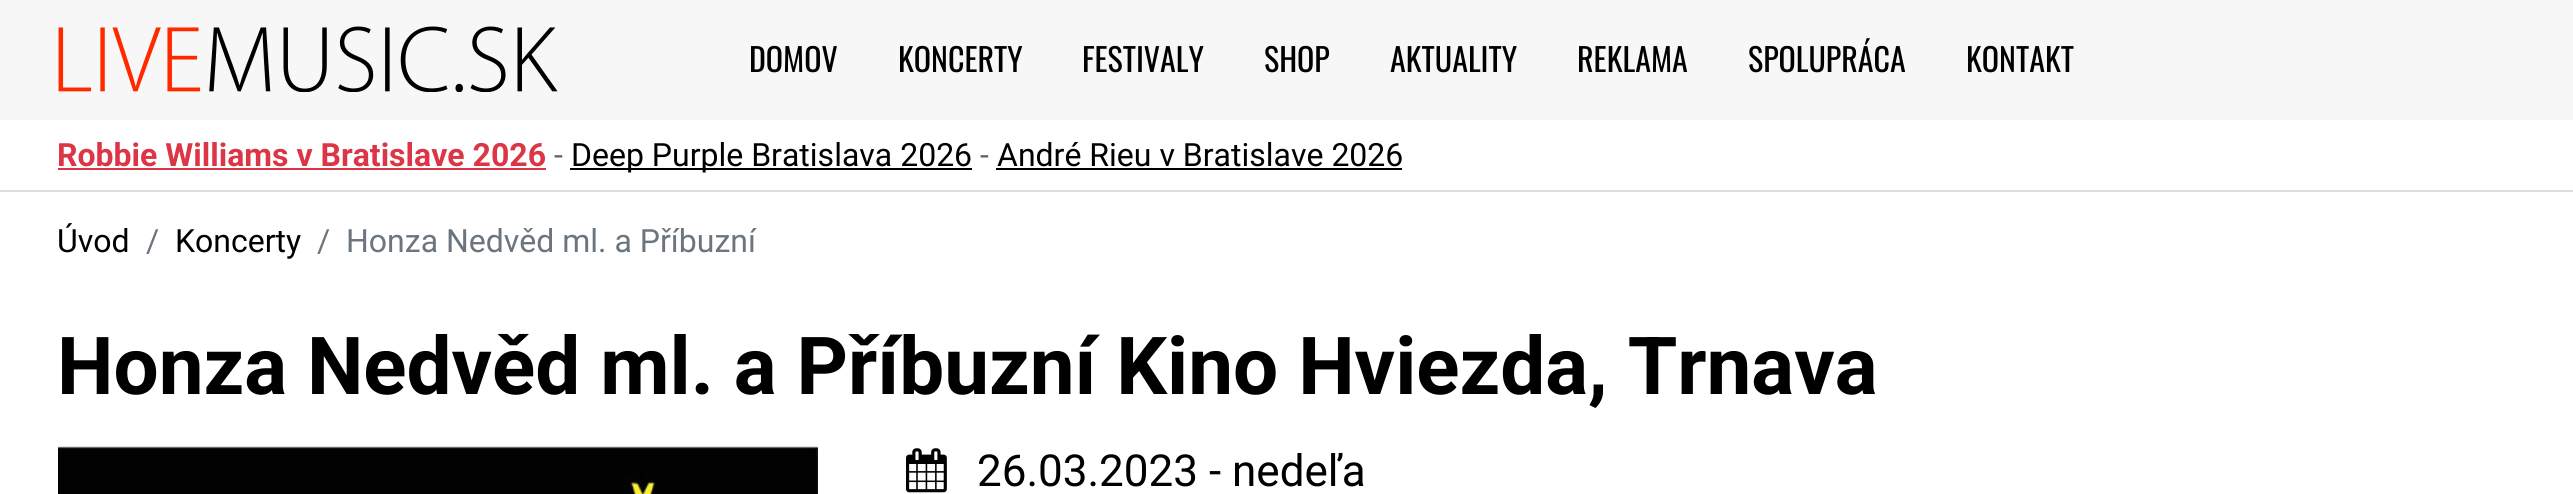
#include <cairo/cairo.h>
#include <math.h>
#include <stddef.h>

static cairo_t *cr;

static void use_color(int r, int g, int b) {
  cairo_set_source_rgb(cr, r / 255.0, g / 255.0, b / 255.0);
}

static void text(double x, double y, const char *s, const char *family, double size, int italic, int bold, int r, int g, int b) {
  cairo_select_font_face(cr, family, italic ? CAIRO_FONT_SLANT_ITALIC : CAIRO_FONT_SLANT_NORMAL,
    bold ? CAIRO_FONT_WEIGHT_BOLD : CAIRO_FONT_WEIGHT_NORMAL);
  cairo_set_font_size(cr, size);
  use_color(r, g, b);
  cairo_move_to(cr, x, y);
  cairo_show_text(cr, s);
}

static void box(double x, double y, double w, double h, int r, int g, int b) {
  use_color(r, g, b);
  cairo_rectangle(cr, x, y, w, h);
  cairo_fill(cr);
}

static void picture(const char *path, double x, double y, double w, double h) {
  cairo_surface_t *image = cairo_image_surface_create_from_png(path);
  cairo_save(cr);
  cairo_set_source_surface(cr, image, x, y);
  cairo_rectangle(cr, x, y, w, h);
  cairo_fill(cr);
  cairo_restore(cr);
  cairo_surface_destroy(image);
}

static void draw(void) {
  use_color(255, 255, 255);
  cairo_paint(cr);
  box(0, 0, 2573, 120, 247, 247, 247);
  picture("img_01.png", 58, 26, 500, 66);
  box(0, 190, 2573, 2, 222, 222, 222);
  box(58, 168, 488, 2, 220, 53, 69);
  box(570, 168, 402, 2, 0, 0, 0);
  box(996, 168, 406, 2, 0, 0, 0);
  picture("img_02.png", 58, 446, 760, 48);
  picture("img_03.png", 906, 448, 41, 45);
  text(749, 72, "DOMOV", "Oswald", 32, 0, 0, 0, 0, 0);
  text(898, 72, "KONCERTY", "Oswald", 32, 0, 0, 0, 0, 0);
  text(1082, 72, "FESTIVALY", "Oswald", 32, 0, 0, 0, 0, 0);
  text(1264, 72, "SHOP", "Oswald", 32, 0, 0, 0, 0, 0);
  text(1390, 72, "AKTUALITY", "Oswald", 32, 0, 0, 0, 0, 0);
  text(1577, 72, "REKLAMA", "Oswald", 32, 0, 0, 0, 0, 0);
  text(1748, 72, "SPOLUPRÁCA", "Oswald", 32, 0, 0, 0, 0, 0);
  text(1966, 72, "KONTAKT", "Oswald", 32, 0, 0, 0, 0, 0);
  text(57, 166, "Robbie Williams v Bratislave 2026", "Roboto", 32, 0, 1, 220, 53, 69);
  text(554, 166, "-", "Roboto", 32, 0, 0, 104, 101, 101);
  text(571, 166, "Deep Purple Bratislava 2026", "Roboto", 32, 0, 0, 0, 0, 0);
  text(980, 166, "-", "Roboto", 32, 0, 0, 104, 101, 101);
  text(997, 166, "André Rieu v Bratislave 2026", "Roboto", 32, 0, 0, 0, 0, 0);
  text(57, 252, "Úvod", "Roboto", 32, 0, 0, 0, 0, 0);
  text(146, 252, "/", "Roboto", 32, 0, 0, 108, 117, 125);
  text(175, 252, "Koncerty", "Roboto", 32, 0, 0, 0, 0, 0);
  text(317, 252, "/", "Roboto", 32, 0, 0, 108, 117, 125);
  text(346, 252, "Honza Nedvěd ml. a Příbuzní", "Roboto", 32, 0, 0, 108, 117, 125);
  text(57, 394, "Honza Nedvěd ml. a Příbuzní Kino Hviezda, Trnava", "Roboto", 80, 0, 1, 0, 0, 0);
  text(977, 486, "26.03.2023 - nedeľa", "Roboto", 44, 0, 0, 0, 0, 0);
}

int main(void) {
  cairo_surface_t *surface = cairo_image_surface_create(CAIRO_FORMAT_RGB24, 2573, 494);
  cr = cairo_create(surface);
  cairo_font_options_t *options = cairo_font_options_create();
  cairo_font_options_set_hint_metrics(options, CAIRO_HINT_METRICS_OFF);
  cairo_font_options_set_hint_style(options, CAIRO_HINT_STYLE_NONE);
  cairo_set_font_options(cr, options);
  cairo_set_miter_limit(cr, 4);
  draw();
  cairo_surface_write_to_png(surface, "out.png");
  cairo_font_options_destroy(options);
  cairo_destroy(cr);
  cairo_surface_destroy(surface);
  return 0;
}
